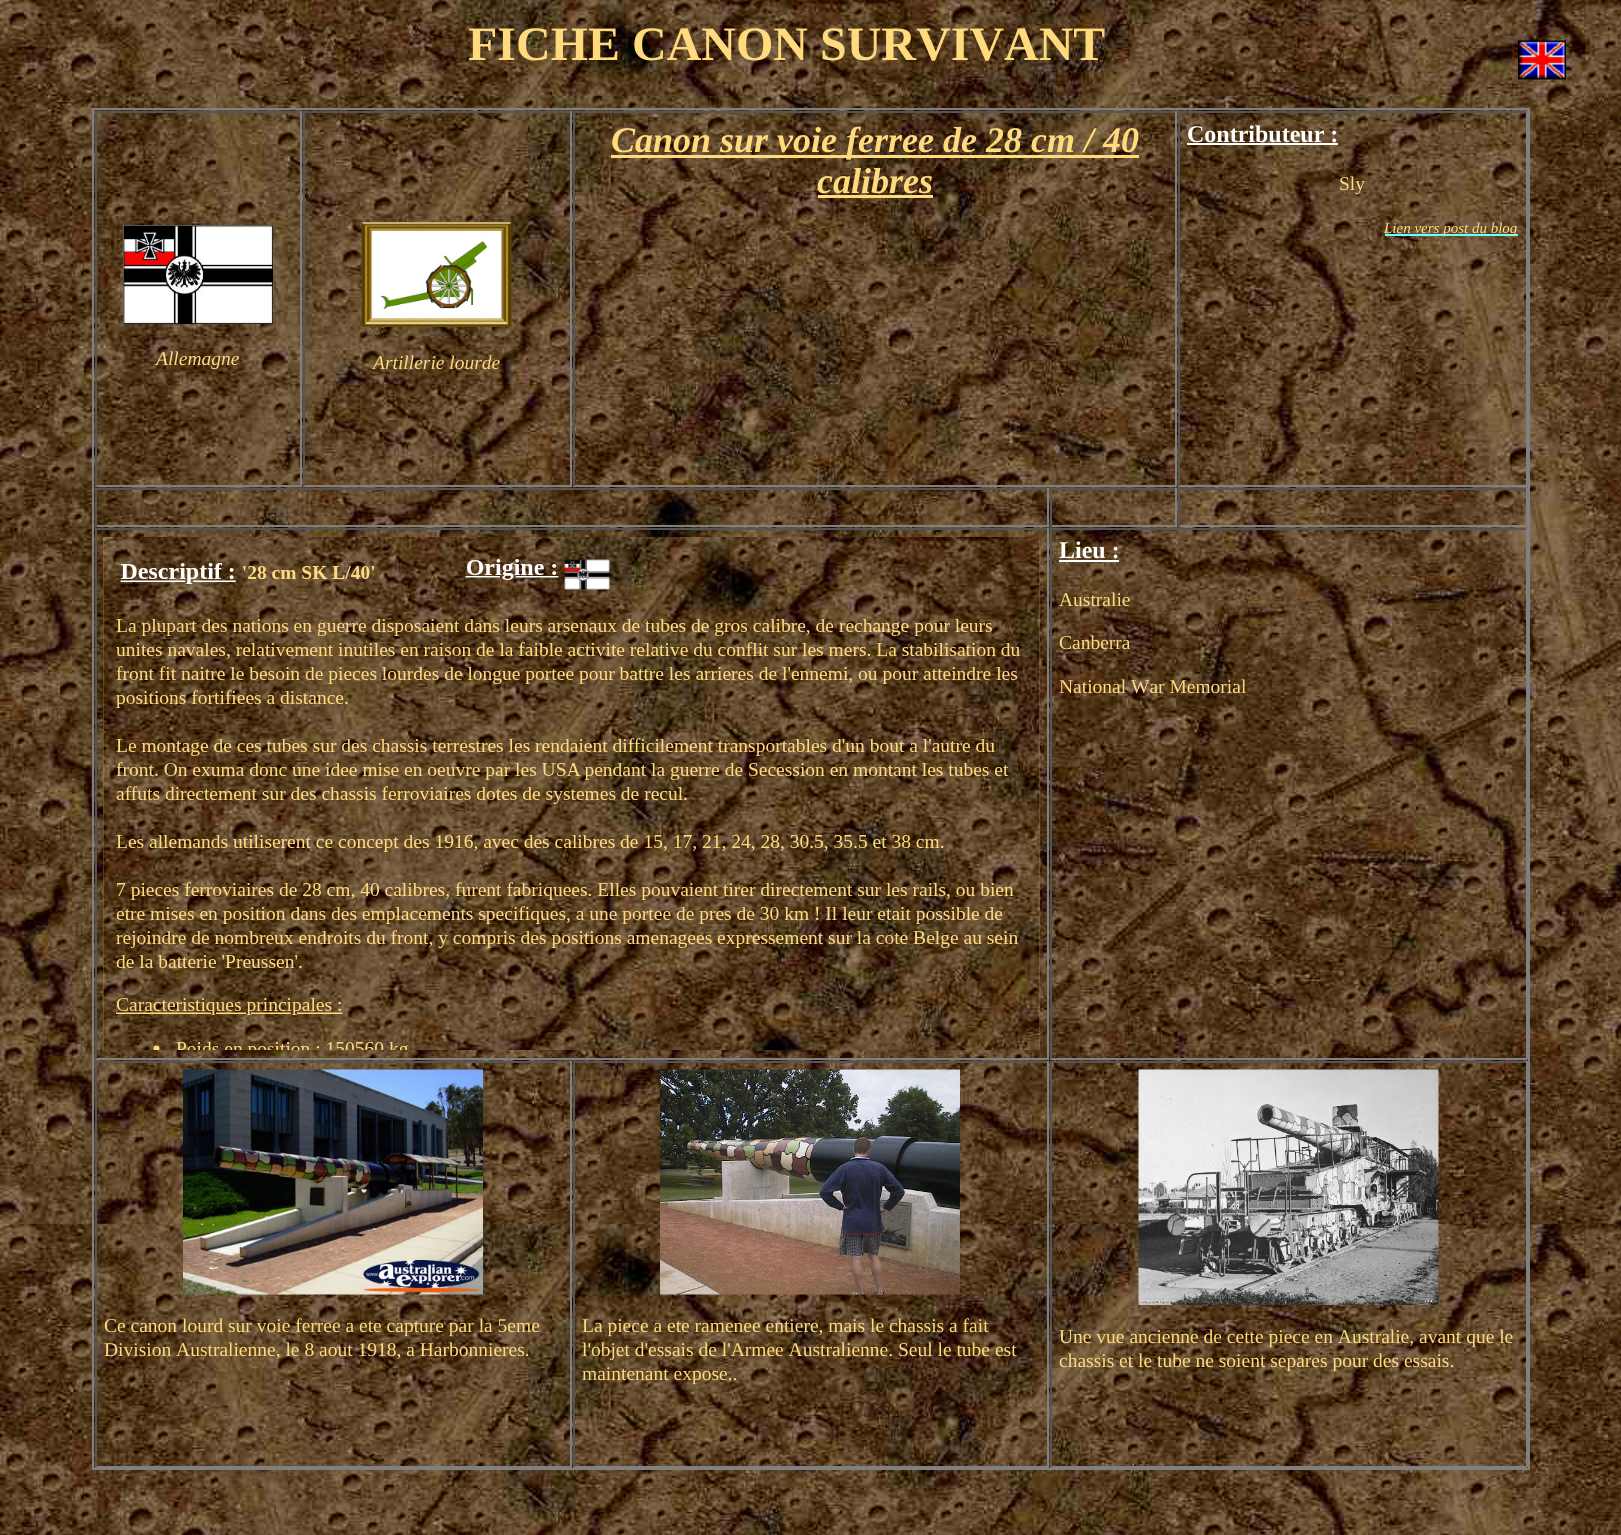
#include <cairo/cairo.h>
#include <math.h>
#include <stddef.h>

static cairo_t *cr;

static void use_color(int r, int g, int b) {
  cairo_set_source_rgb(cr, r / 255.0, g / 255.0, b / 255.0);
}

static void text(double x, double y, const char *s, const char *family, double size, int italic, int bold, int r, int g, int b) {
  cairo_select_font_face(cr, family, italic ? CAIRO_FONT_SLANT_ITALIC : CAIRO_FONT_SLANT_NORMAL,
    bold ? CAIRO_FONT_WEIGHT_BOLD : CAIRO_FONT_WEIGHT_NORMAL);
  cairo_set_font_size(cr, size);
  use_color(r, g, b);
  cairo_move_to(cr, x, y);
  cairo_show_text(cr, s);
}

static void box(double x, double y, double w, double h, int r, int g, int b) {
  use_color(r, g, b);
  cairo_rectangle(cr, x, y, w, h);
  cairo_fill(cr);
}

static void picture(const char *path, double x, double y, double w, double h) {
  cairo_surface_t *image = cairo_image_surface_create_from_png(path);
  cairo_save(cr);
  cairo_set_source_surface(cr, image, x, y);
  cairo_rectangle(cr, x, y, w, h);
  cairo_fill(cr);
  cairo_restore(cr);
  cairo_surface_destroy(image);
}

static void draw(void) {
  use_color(255, 255, 255);
  cairo_paint(cr);
  picture("img_01.png", 0, 0, 1621, 1535);
  picture("img_02.png", 1518, 40, 48, 40);
  cairo_rectangle(cr, 93, 109, 1436, 1360);
  use_color(128, 128, 128);
  cairo_stroke(cr);
  box(573, 111, 603, 2, 85, 85, 85);
  box(1175, 111, 2, 375, 128, 128, 128);
  box(573, 485, 603, 2, 128, 128, 128);
  box(573, 111, 2, 375, 85, 85, 85);
  box(611, 155, 528, 3, 255, 219, 126);
  box(818, 195, 115, 3, 255, 219, 126);
  box(1178, 111, 349, 2, 85, 85, 85);
  box(1526, 111, 2, 375, 128, 128, 128);
  box(1178, 485, 349, 2, 128, 128, 128);
  box(1178, 111, 2, 375, 85, 85, 85);
  box(1187, 143, 151, 2, 255, 255, 255);
  box(1385, 234, 133, 2, 102, 255, 255);
  box(95, 111, 207, 2, 85, 85, 85);
  box(300, 111, 2, 375, 128, 128, 128);
  box(95, 485, 207, 2, 128, 128, 128);
  box(95, 111, 2, 375, 85, 85, 85);
  picture("img_03.png", 123, 225, 150, 99);
  box(303, 111, 269, 2, 85, 85, 85);
  box(570, 111, 2, 375, 128, 128, 128);
  box(303, 485, 269, 2, 128, 128, 128);
  box(303, 111, 2, 375, 85, 85, 85);
  picture("img_04.png", 361, 222, 151, 105);
  box(95, 488, 954, 2, 85, 85, 85);
  box(1047, 488, 2, 39, 128, 128, 128);
  box(95, 525, 954, 2, 128, 128, 128);
  box(95, 488, 2, 39, 85, 85, 85);
  box(1050, 488, 126, 2, 85, 85, 85);
  box(1175, 488, 2, 39, 128, 128, 128);
  box(1050, 525, 126, 2, 128, 128, 128);
  box(1050, 488, 2, 39, 85, 85, 85);
  box(1178, 488, 349, 2, 85, 85, 85);
  box(1526, 488, 2, 39, 128, 128, 128);
  box(1178, 525, 349, 2, 128, 128, 128);
  box(1178, 488, 2, 39, 85, 85, 85);
  box(95, 528, 954, 2, 85, 85, 85);
  box(1047, 528, 2, 531, 128, 128, 128);
  box(95, 1058, 954, 2, 128, 128, 128);
  box(95, 528, 2, 531, 85, 85, 85);
  picture("img_05.png", 103, 537, 937, 513);
  box(1050, 528, 477, 2, 85, 85, 85);
  box(1526, 528, 2, 531, 128, 128, 128);
  box(1050, 1058, 477, 2, 128, 128, 128);
  box(1050, 528, 2, 531, 85, 85, 85);
  box(1059, 560, 60, 2, 255, 255, 255);
  box(95, 1061, 477, 2, 85, 85, 85);
  box(570, 1061, 2, 406, 128, 128, 128);
  box(95, 1466, 477, 2, 128, 128, 128);
  box(95, 1061, 2, 406, 85, 85, 85);
  picture("img_06.png", 183, 1069, 300, 226);
  box(573, 1061, 476, 2, 85, 85, 85);
  box(1047, 1061, 2, 406, 128, 128, 128);
  box(573, 1466, 476, 2, 128, 128, 128);
  box(573, 1061, 2, 406, 85, 85, 85);
  picture("img_07.png", 660, 1069, 300, 226);
  box(1050, 1061, 477, 2, 85, 85, 85);
  box(1526, 1061, 2, 406, 128, 128, 128);
  box(1050, 1466, 477, 2, 128, 128, 128);
  box(1050, 1061, 2, 406, 85, 85, 85);
  picture("img_08.png", 1138, 1069, 301, 236);
  text(468, 60, "FICHE CANON SURVIVANT", "Liberation Serif", 48, 0, 1, 255, 219, 126);
  text(611, 152, "Canon sur voie ferree de 28 cm / 40", "Liberation Serif", 36, 1, 1, 255, 219, 126);
  text(817, 193, "calibres", "Liberation Serif", 36, 1, 1, 255, 219, 126);
  text(1187, 142, "Contributeur :", "Liberation Serif", 24, 0, 1, 255, 255, 255);
  text(1339, 190, "Sly", "Liberation Serif", 19.5, 0, 0, 255, 219, 126);
  text(1384, 233, "Lien vers post du blog", "Liberation Serif", 15, 1, 0, 255, 219, 126);
  text(156, 365, "Allemagne", "Liberation Serif", 19.5, 1, 0, 255, 219, 126);
  text(373, 369, "Artillerie lourde", "Liberation Serif", 19.5, 1, 0, 255, 219, 126);
  text(1059, 558, "Lieu :", "Liberation Serif", 24, 0, 1, 255, 255, 255);
  text(1059, 606, "Australie", "Liberation Serif", 19.5, 0, 0, 255, 219, 126);
  text(1059, 649, "Canberra", "Liberation Serif", 19.5, 0, 0, 255, 219, 126);
  text(1059, 693, "National War Memorial", "Liberation Serif", 19.5, 0, 0, 255, 219, 126);
  text(104, 1332, "Ce canon lourd sur voie ferree a ete capture par la 5eme", "Liberation Serif", 19.5, 0, 0, 255, 219, 126);
  text(104, 1356, "Division Australienne, le 8 aout 1918, a Harbonnieres.", "Liberation Serif", 19.5, 0, 0, 255, 219, 126);
  text(582, 1332, "La piece a ete ramenee entiere, mais le chassis a fait", "Liberation Serif", 19.5, 0, 0, 255, 219, 126);
  text(582, 1356, "l'objet d'essais de l'Armee Australienne. Seul le tube est", "Liberation Serif", 19.5, 0, 0, 255, 219, 126);
  text(582, 1380, "maintenant expose..", "Liberation Serif", 19.5, 0, 0, 255, 219, 126);
  text(1059, 1343, "Une vue ancienne de cette piece en Australie, avant que le", "Liberation Serif", 19.5, 0, 0, 255, 219, 126);
  text(1059, 1367, "chassis et le tube ne soient separes pour des essais.", "Liberation Serif", 19.5, 0, 0, 255, 219, 126);
}

int main(void) {
  cairo_surface_t *surface = cairo_image_surface_create(CAIRO_FORMAT_RGB24, 1621, 1535);
  cr = cairo_create(surface);
  cairo_font_options_t *options = cairo_font_options_create();
  cairo_font_options_set_hint_metrics(options, CAIRO_HINT_METRICS_OFF);
  cairo_font_options_set_hint_style(options, CAIRO_HINT_STYLE_NONE);
  cairo_set_font_options(cr, options);
  cairo_set_miter_limit(cr, 4);
  draw();
  cairo_surface_write_to_png(surface, "out.png");
  cairo_font_options_destroy(options);
  cairo_destroy(cr);
  cairo_surface_destroy(surface);
  return 0;
}
